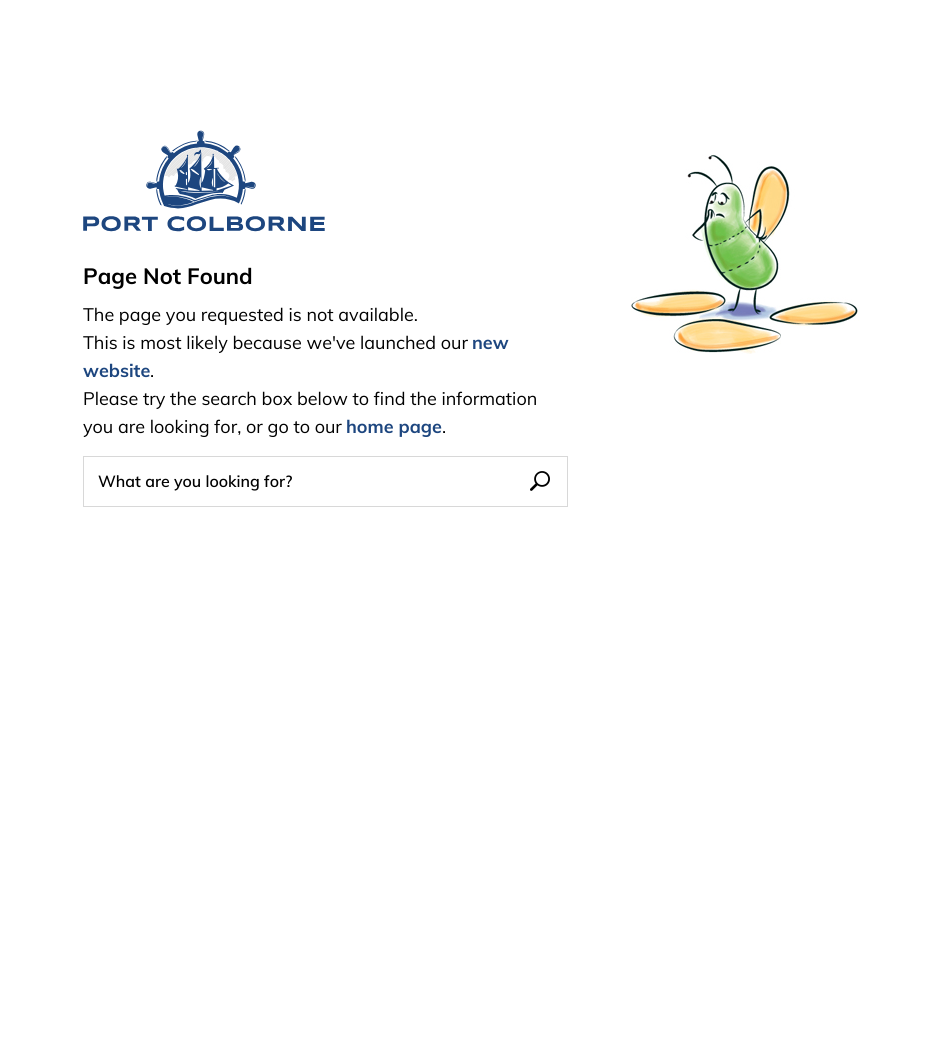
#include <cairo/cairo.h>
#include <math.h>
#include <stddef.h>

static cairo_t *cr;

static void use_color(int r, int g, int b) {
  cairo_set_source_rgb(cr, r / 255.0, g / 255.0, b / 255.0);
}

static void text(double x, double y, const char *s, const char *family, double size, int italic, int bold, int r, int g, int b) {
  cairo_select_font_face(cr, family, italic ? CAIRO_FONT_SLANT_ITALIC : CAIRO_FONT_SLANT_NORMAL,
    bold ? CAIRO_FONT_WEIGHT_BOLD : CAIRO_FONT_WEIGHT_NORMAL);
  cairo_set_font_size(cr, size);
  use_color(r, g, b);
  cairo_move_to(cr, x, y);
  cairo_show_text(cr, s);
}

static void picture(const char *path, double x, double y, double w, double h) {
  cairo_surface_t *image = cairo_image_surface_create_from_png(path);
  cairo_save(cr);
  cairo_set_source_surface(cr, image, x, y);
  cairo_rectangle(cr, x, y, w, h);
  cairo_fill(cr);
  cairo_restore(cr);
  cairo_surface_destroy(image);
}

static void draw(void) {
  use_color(255, 255, 255);
  cairo_paint(cr);
  picture("img_01.png", 631, 154, 229, 200);
  picture("img_02.png", 83, 130, 242, 102);
  cairo_rectangle(cr, 83.5, 456.5, 484, 50);
  use_color(216, 216, 216);
  cairo_set_line_width(cr, 1);
  cairo_stroke(cr);
  picture("img_03.png", 530, 471, 20, 20);
  text(83, 284, "Page Not Found", "Muli", 22, 0, 1, 0, 0, 0);
  text(83, 321, "The page you requested is not available.", "Muli", 18, 0, 0, 0, 0, 0);
  text(83, 349, "This is most likely because we've launched our", "Muli", 18, 0, 0, 0, 0, 0);
  text(472, 349, "new", "Muli", 18, 0, 1, 29, 70, 127);
  text(83, 377, "website", "Muli", 18, 0, 1, 29, 70, 127);
  text(150, 377, ".", "Muli", 18, 0, 0, 0, 0, 0);
  text(83, 405, "Please try the search box below to find the information", "Muli", 18, 0, 0, 0, 0, 0);
  text(83, 433, "you are looking for, or go to our", "Muli", 18, 0, 0, 0, 0, 0);
  text(346, 433, "home page", "Muli", 18, 0, 1, 29, 70, 127);
  text(442, 433, ".", "Muli", 18, 0, 0, 0, 0, 0);
  text(98, 487, "What are you looking for?", "Muli SemiBold", 16, 0, 0, 0, 0, 0);
}

int main(void) {
  cairo_surface_t *surface = cairo_image_surface_create(CAIRO_FORMAT_RGB24, 935, 1061);
  cr = cairo_create(surface);
  cairo_font_options_t *options = cairo_font_options_create();
  cairo_font_options_set_hint_metrics(options, CAIRO_HINT_METRICS_OFF);
  cairo_font_options_set_hint_style(options, CAIRO_HINT_STYLE_NONE);
  cairo_set_font_options(cr, options);
  cairo_set_miter_limit(cr, 4);
  draw();
  cairo_surface_write_to_png(surface, "out.png");
  cairo_font_options_destroy(options);
  cairo_destroy(cr);
  cairo_surface_destroy(surface);
  return 0;
}
